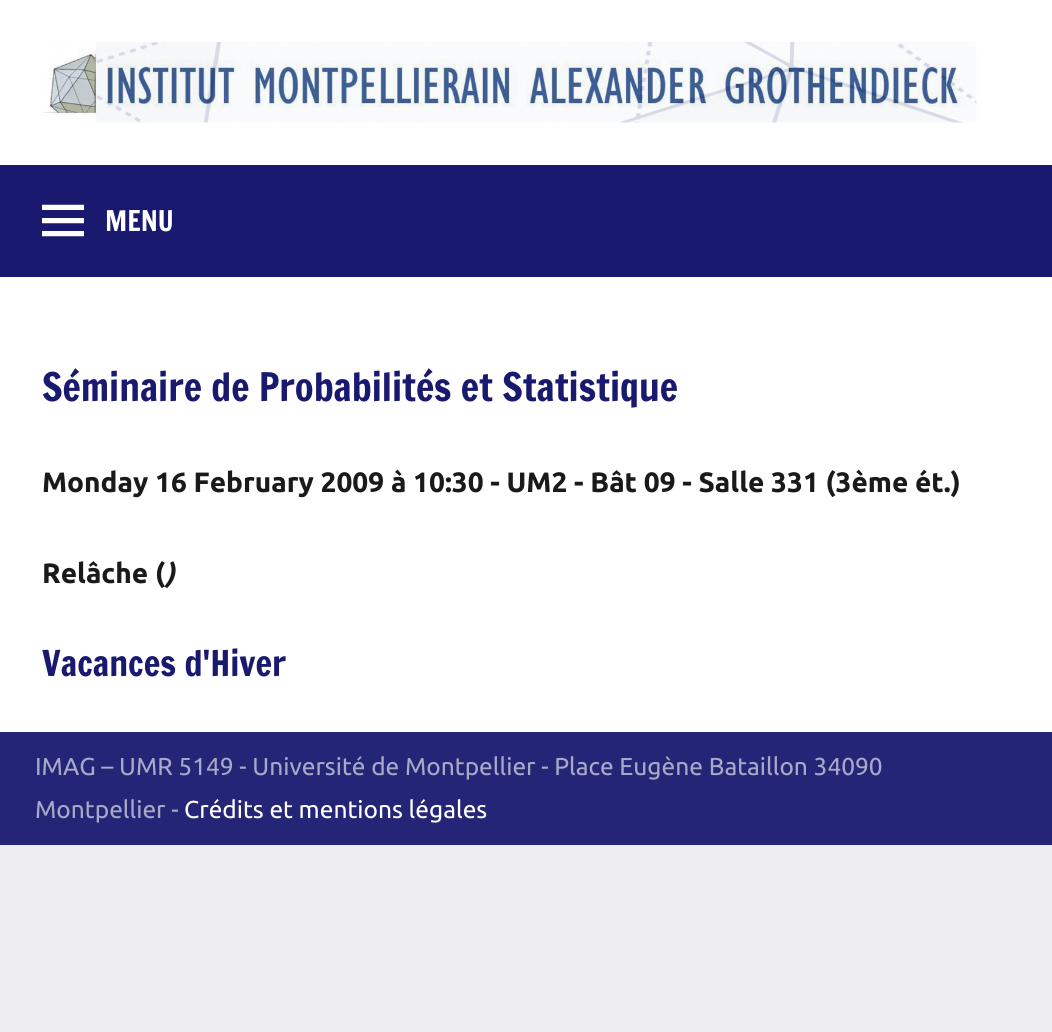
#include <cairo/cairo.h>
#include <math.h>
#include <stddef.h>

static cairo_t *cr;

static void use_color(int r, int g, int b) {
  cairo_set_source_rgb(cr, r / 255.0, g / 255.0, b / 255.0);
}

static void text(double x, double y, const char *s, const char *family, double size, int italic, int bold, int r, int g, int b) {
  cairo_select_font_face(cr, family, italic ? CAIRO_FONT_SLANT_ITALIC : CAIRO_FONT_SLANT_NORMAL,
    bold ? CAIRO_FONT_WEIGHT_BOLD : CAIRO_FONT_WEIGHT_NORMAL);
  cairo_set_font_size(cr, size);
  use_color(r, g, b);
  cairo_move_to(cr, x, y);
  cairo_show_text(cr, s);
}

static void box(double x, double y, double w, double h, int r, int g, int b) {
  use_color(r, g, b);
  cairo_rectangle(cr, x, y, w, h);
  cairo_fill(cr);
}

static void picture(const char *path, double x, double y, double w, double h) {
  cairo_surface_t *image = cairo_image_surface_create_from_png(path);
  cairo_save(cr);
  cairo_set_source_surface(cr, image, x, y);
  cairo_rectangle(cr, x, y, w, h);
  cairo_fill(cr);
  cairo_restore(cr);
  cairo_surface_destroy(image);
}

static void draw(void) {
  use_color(237, 237, 239);
  cairo_paint(cr);
  box(0, 0, 1052, 165, 255, 255, 255);
  picture("img_01.png", 44, 42, 933, 81);
  box(0, 165, 1052, 112, 25, 25, 112);
  picture("img_02.png", 42, 204, 42, 33);
  box(0, 277, 1052, 455, 255, 255, 255);
  box(0, 732, 1052, 113, 37, 37, 119);
  text(105, 231, "MENU", "Francois One", 28, 0, 0, 255, 255, 255);
  text(42, 401, "Séminaire de Probabilités et Statistique", "Francois One", 38.5, 0, 0, 25, 25, 112);
  text(42, 492, "Monday 16 February 2009 à 10:30 - UM2 - Bât 09 - Salle 331 (3ème ét.)", "Ubuntu", 28, 0, 1, 26, 26, 26);
  text(42, 583, "Relâche (", "Ubuntu", 28, 0, 1, 26, 26, 26);
  text(165, 583, ")", "Ubuntu", 28, 1, 1, 26, 26, 26);
  text(42, 676, "Vacances d'Hiver", "Francois One", 35, 0, 0, 25, 25, 112);
  text(35, 775, "IMAG – UMR 5149 - Université de Montpellier - Place Eugène Bataillon 34090", "Ubuntu", 24.5, 0, 0, 168, 168, 201);
  text(35, 818, "Montpellier -", "Ubuntu", 24.5, 0, 0, 168, 168, 201);
  text(184, 818, "Crédits et mentions légales", "Ubuntu", 24.5, 0, 0, 255, 255, 255);
}

int main(void) {
  cairo_surface_t *surface = cairo_image_surface_create(CAIRO_FORMAT_RGB24, 1052, 1032);
  cr = cairo_create(surface);
  cairo_font_options_t *options = cairo_font_options_create();
  cairo_font_options_set_hint_metrics(options, CAIRO_HINT_METRICS_OFF);
  cairo_font_options_set_hint_style(options, CAIRO_HINT_STYLE_NONE);
  cairo_set_font_options(cr, options);
  cairo_set_miter_limit(cr, 4);
  draw();
  cairo_surface_write_to_png(surface, "out.png");
  cairo_font_options_destroy(options);
  cairo_destroy(cr);
  cairo_surface_destroy(surface);
  return 0;
}
